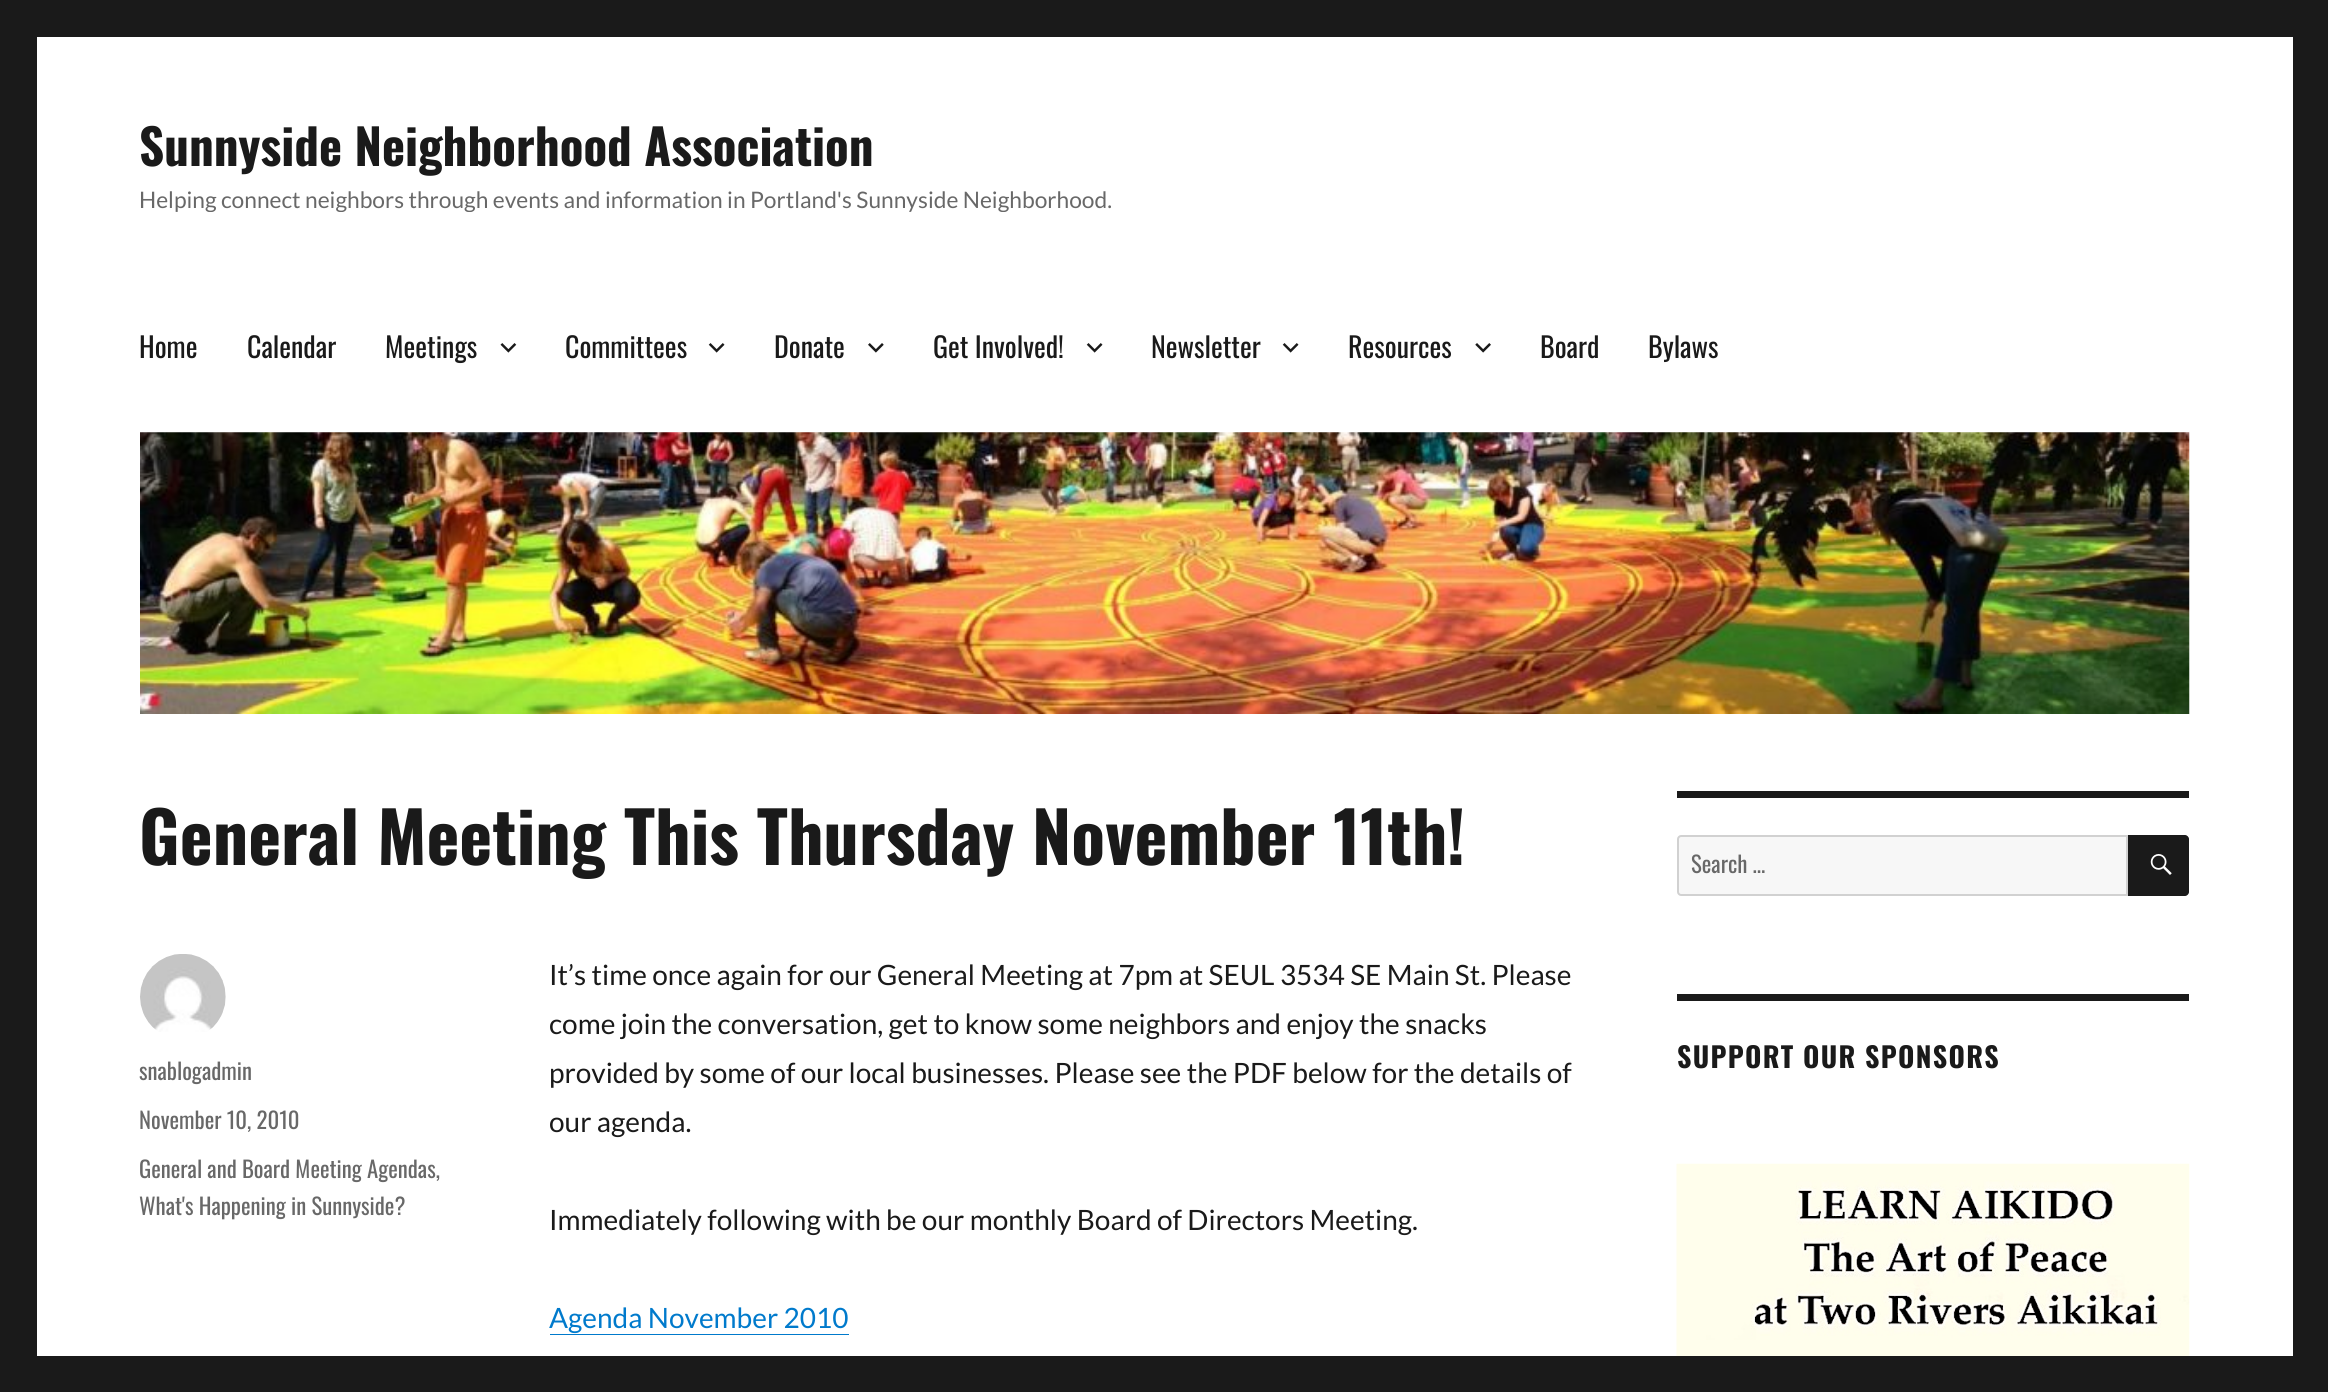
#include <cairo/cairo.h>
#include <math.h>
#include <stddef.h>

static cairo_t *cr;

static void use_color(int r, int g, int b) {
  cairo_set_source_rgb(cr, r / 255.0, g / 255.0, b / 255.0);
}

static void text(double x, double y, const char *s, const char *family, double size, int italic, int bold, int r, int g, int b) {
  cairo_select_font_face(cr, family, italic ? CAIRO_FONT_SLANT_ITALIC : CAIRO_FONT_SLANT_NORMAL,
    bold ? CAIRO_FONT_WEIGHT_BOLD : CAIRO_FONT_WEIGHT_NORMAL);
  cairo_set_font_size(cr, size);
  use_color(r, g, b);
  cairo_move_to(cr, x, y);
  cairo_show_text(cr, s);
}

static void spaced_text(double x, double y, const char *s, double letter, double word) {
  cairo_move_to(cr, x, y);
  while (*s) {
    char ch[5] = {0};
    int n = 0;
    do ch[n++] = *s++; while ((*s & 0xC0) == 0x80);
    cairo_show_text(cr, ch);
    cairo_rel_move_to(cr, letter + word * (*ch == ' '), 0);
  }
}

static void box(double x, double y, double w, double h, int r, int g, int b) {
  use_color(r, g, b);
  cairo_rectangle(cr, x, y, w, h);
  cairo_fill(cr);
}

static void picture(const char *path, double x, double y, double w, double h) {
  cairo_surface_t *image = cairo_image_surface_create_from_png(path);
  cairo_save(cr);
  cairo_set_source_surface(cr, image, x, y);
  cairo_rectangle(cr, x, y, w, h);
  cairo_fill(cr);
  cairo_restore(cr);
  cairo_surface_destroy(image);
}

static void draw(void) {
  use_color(26, 26, 26);
  cairo_paint(cr);
  box(37, 37, 2256, 1319, 255, 255, 255);
  picture("img_01.png", 500, 343, 17, 10);
  picture("img_02.png", 708, 343, 17, 10);
  picture("img_03.png", 868, 343, 16, 10);
  picture("img_02.png", 1086, 343, 17, 10);
  picture("img_02.png", 1282, 343, 17, 10);
  picture("img_04.png", 1475, 343, 16, 10);
  picture("img_05.png", 140, 432, 2050, 282);
  picture("img_06.png", 140, 954, 86, 78);
  use_color(0, 122, 204);
  cairo_new_path(cr);
  cairo_move_to(cr, 550, 1334);
  cairo_line_to(cr, 550, 1335);
  cairo_line_to(cr, 849, 1335);
  cairo_line_to(cr, 849, 1302);
  cairo_line_to(cr, 849, 1334);
  cairo_close_path(cr);
  cairo_fill(cr);
  box(1677, 791, 512, 7, 26, 26, 26);
  use_color(247, 247, 247);
  cairo_new_path(cr);
  cairo_move_to(cr, 1681, 836);
  cairo_line_to(cr, 2127, 836);
  cairo_line_to(cr, 2127, 895);
  cairo_line_to(cr, 1681, 895);
  cairo_curve_to(cr, 1679.5, 895, 1678, 893.5, 1678, 892);
  cairo_line_to(cr, 1678, 839);
  cairo_curve_to(cr, 1678, 837.5, 1679.5, 836, 1681, 836);
  cairo_close_path(cr);
  cairo_fill_preserve(cr);
  use_color(209, 209, 209);
  cairo_stroke(cr);
  use_color(26, 26, 26);
  cairo_new_path(cr);
  cairo_move_to(cr, 2128, 835);
  cairo_line_to(cr, 2185, 835);
  cairo_curve_to(cr, 2187, 835, 2189, 837, 2189, 839);
  cairo_line_to(cr, 2189, 892);
  cairo_curve_to(cr, 2189, 894, 2187, 896, 2185, 896);
  cairo_line_to(cr, 2128, 896);
  cairo_close_path(cr);
  cairo_fill(cr);
  picture("img_07.png", 2150, 854, 22, 21);
  box(1677, 994, 512, 7, 26, 26, 26);
  picture("img_08.png", 1676, 1163, 514, 193);
  text(139, 166, "Sunnyside Neighborhood Association", "Oswald", 49, 0, 1, 26, 26, 26);
  cairo_save(cr);
  cairo_rectangle(cr, 140, 114, 973, 98);
  cairo_clip(cr);
  text(139, 208, "Helping connect neighbors through events and information in Portland's Sunnyside Neighborhood.", "Lato", 22.75, 0, 0, 104, 104, 104);
  cairo_restore(cr);
  text(139, 358, "Home", "Oswald", 28, 0, 0, 26, 26, 26);
  text(247, 358, "Calendar", "Oswald", 28, 0, 0, 26, 26, 26);
  text(385, 358, "Meetings", "Oswald", 28, 0, 0, 26, 26, 26);
  text(565, 358, "Committees", "Oswald", 28, 0, 0, 26, 26, 26);
  text(774, 358, "Donate", "Oswald", 28, 0, 0, 26, 26, 26);
  text(933, 358, "Get Involved!", "Oswald", 28, 0, 0, 26, 26, 26);
  text(1151, 358, "Newsletter", "Oswald", 28, 0, 0, 26, 26, 26);
  text(1348, 358, "Resources", "Oswald", 28, 0, 0, 26, 26, 26);
  text(1540, 358, "Board", "Oswald", 28, 0, 0, 26, 26, 26);
  text(1648, 358, "Bylaws", "Oswald", 28, 0, 0, 26, 26, 26);
  text(139, 865, "General Meeting This Thursday November 11th!", "Oswald", 70, 0, 1, 26, 26, 26);
  text(139, 1080, "snablogadmin", "Oswald", 22.75, 0, 0, 104, 104, 104);
  text(139, 1129, "November 10, 2010", "Oswald", 22.75, 0, 0, 104, 104, 104);
  text(139, 1178, "General and Board Meeting Agendas,", "Oswald", 22.75, 0, 0, 104, 104, 104);
  text(139, 1215, "What's Happening in Sunnyside?", "Oswald", 22.75, 0, 0, 104, 104, 104);
  text(549, 985, "It’s time once again for our General Meeting at 7pm at SEUL 3534 SE Main St. Please", "Lato", 28, 0, 0, 26, 26, 26);
  text(549, 1034, "come join the conversation, get to know some neighbors and enjoy the snacks", "Lato", 28, 0, 0, 26, 26, 26);
  text(549, 1083, "provided by some of our local businesses. Please see the PDF below for the details of", "Lato", 28, 0, 0, 26, 26, 26);
  text(549, 1132, "our agenda.", "Lato", 28, 0, 0, 26, 26, 26);
  text(549, 1230, "Immediately following with be our monthly Board of Directors Meeting.", "Lato", 28, 0, 0, 26, 26, 26);
  text(549, 1328, "Agenda November 2010", "Lato", 28, 0, 0, 0, 122, 204);
  text(1691, 873, "Search …", "Oswald", 22.75, 0, 0, 104, 104, 104);
  cairo_select_font_face(cr, "Oswald", CAIRO_FONT_SLANT_NORMAL, CAIRO_FONT_WEIGHT_BOLD);
  cairo_set_font_size(cr, 28);
  use_color(26, 26, 26);
  spaced_text(1677, 1068, "SUPPORT OUR SPONSORS", 1.3, 0);
}

int main(void) {
  cairo_surface_t *surface = cairo_image_surface_create(CAIRO_FORMAT_RGB24, 2328, 1392);
  cr = cairo_create(surface);
  cairo_font_options_t *options = cairo_font_options_create();
  cairo_font_options_set_hint_metrics(options, CAIRO_HINT_METRICS_OFF);
  cairo_font_options_set_hint_style(options, CAIRO_HINT_STYLE_NONE);
  cairo_set_font_options(cr, options);
  cairo_set_miter_limit(cr, 4);
  draw();
  cairo_surface_write_to_png(surface, "out.png");
  cairo_font_options_destroy(options);
  cairo_destroy(cr);
  cairo_surface_destroy(surface);
  return 0;
}
